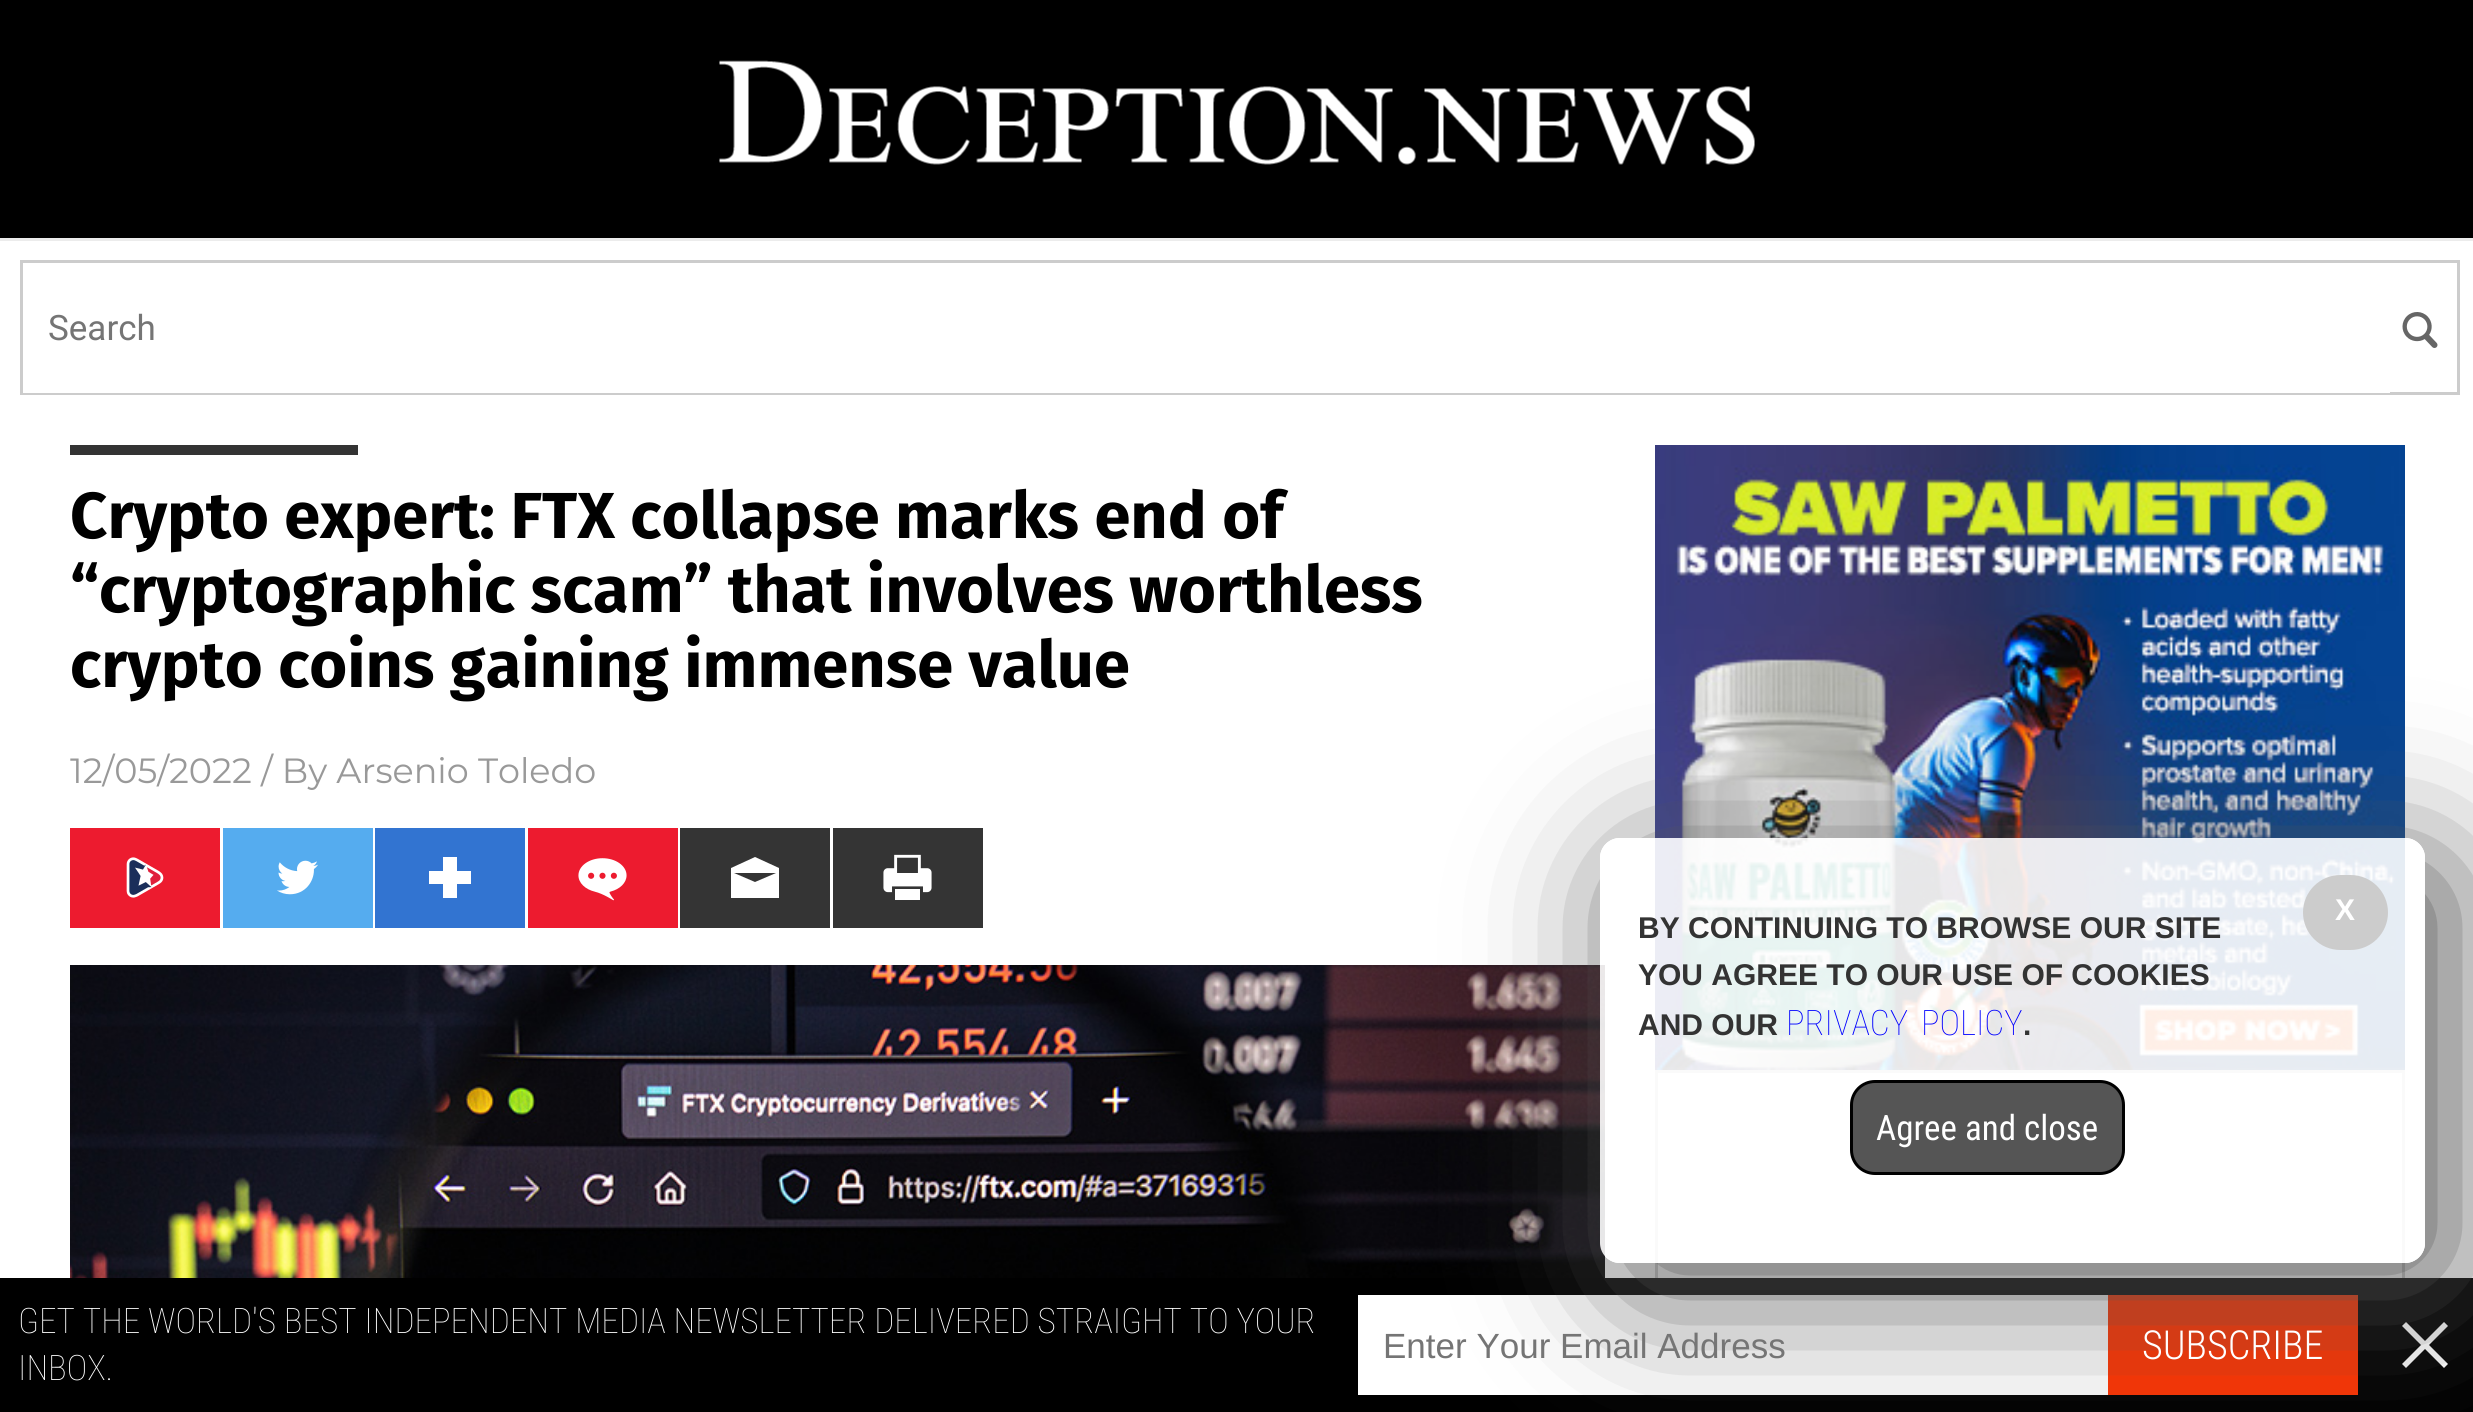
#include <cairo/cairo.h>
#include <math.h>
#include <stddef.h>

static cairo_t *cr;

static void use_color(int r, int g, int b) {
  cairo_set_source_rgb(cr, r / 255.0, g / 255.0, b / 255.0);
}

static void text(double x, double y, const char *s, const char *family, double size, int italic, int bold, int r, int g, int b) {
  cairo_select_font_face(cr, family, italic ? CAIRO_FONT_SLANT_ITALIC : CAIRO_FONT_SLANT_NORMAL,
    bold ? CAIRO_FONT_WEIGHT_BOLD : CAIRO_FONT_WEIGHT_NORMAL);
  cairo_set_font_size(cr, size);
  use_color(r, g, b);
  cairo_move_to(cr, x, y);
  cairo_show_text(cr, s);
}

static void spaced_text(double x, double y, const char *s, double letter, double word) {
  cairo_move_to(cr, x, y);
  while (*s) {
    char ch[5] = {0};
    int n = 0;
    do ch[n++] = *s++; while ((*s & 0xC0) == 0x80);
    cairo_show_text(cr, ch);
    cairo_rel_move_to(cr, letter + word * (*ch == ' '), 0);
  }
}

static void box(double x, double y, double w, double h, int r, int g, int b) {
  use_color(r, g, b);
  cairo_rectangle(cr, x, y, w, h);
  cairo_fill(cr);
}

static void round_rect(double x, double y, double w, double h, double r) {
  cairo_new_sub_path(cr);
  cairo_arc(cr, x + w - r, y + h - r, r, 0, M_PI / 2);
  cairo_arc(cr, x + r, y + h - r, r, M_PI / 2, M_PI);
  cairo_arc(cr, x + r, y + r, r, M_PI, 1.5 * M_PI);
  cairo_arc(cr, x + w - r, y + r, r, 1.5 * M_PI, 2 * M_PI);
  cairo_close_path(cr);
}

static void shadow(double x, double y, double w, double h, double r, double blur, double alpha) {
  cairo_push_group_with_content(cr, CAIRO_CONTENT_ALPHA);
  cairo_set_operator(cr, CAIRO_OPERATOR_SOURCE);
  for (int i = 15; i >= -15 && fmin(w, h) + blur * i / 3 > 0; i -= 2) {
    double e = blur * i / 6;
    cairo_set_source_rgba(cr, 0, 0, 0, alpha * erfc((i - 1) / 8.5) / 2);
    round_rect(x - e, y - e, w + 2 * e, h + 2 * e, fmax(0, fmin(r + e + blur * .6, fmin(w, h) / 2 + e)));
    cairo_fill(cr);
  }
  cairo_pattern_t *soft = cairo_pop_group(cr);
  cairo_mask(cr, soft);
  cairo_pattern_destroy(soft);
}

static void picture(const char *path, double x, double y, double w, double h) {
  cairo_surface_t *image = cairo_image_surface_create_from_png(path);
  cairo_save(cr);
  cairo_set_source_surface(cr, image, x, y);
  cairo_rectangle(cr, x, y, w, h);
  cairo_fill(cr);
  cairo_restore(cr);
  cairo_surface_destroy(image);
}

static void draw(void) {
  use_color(0, 0, 0);
  cairo_paint(cr);
  picture("img_01.png", 719, 60, 1036, 105);
  box(0, 241, 2473, 1037, 255, 255, 255);
  box(0, 238, 2473, 3, 236, 236, 236);
  cairo_rectangle(cr, 21.5, 261.5, 2437, 132);
  use_color(204, 204, 204);
  cairo_set_line_width(cr, 3);
  cairo_stroke(cr);
  box(23, 392, 2367, 1, 255, 255, 255);
  picture("img_02.png", 2402, 312, 36, 36);
  box(70, 445, 288, 10, 51, 51, 51);
  box(70, 828, 150, 100, 237, 27, 47);
  picture("img_03.png", 126, 857, 38, 41);
  box(223, 828, 150, 100, 85, 172, 239);
  picture("img_04.png", 277, 860, 41, 35);
  box(375, 828, 150, 100, 50, 116, 209);
  use_color(255, 255, 255);
  cairo_new_path(cr);
  cairo_move_to(cr, 471, 871);
  cairo_line_to(cr, 457, 871);
  cairo_line_to(cr, 457, 857);
  cairo_line_to(cr, 443, 857);
  cairo_line_to(cr, 443, 871);
  cairo_line_to(cr, 429, 871);
  cairo_line_to(cr, 429, 884);
  cairo_line_to(cr, 443, 884);
  cairo_line_to(cr, 443, 898);
  cairo_line_to(cr, 457, 898);
  cairo_line_to(cr, 457, 884);
  cairo_line_to(cr, 471, 884);
  cairo_close_path(cr);
  cairo_fill(cr);
  box(528, 828, 150, 100, 237, 27, 47);
  picture("img_05.png", 578, 858, 49, 43);
  box(680, 828, 150, 100, 52, 52, 52);
  use_color(255, 255, 255);
  cairo_new_path(cr);
  cairo_move_to(cr, 755, 857);
  cairo_line_to(cr, 731, 868);
  cairo_line_to(cr, 731, 898);
  cairo_line_to(cr, 779, 898);
  cairo_line_to(cr, 779, 868);
  cairo_close_path(cr);
  cairo_move_to(cr, 755, 882);
  cairo_line_to(cr, 734, 873);
  cairo_line_to(cr, 776, 873);
  cairo_close_path(cr);
  cairo_fill(cr);
  box(833, 828, 150, 100, 52, 52, 52);
  picture("img_06.png", 883, 854, 49, 46);
  picture("img_07.png", 70, 965, 1535, 313);
  picture("img_08.png", 1655, 445, 750, 625);
  cairo_rectangle(cr, 1656.5, 1071.5, 747, 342);
  use_color(204, 204, 204);
  cairo_stroke(cr);
  box(1655, 1278, 750, 134, 0, 0, 0);
  box(1358, 1295, 750, 100, 255, 255, 255);
  box(2108, 1295, 250, 100, 255, 51, 0);
  use_color(255, 255, 255);
  cairo_new_path(cr);
  cairo_move_to(cr, 2448, 1326);
  cairo_line_to(cr, 2444, 1322);
  cairo_line_to(cr, 2425, 1341);
  cairo_line_to(cr, 2406, 1322);
  cairo_line_to(cr, 2402, 1326);
  cairo_line_to(cr, 2421, 1345);
  cairo_line_to(cr, 2402, 1364);
  cairo_line_to(cr, 2406, 1368);
  cairo_line_to(cr, 2425, 1349);
  cairo_line_to(cr, 2444, 1368);
  cairo_line_to(cr, 2448, 1364);
  cairo_line_to(cr, 2429, 1345);
  cairo_close_path(cr);
  cairo_fill(cr);
  cairo_save(cr);
  cairo_set_fill_rule(cr, CAIRO_FILL_RULE_EVEN_ODD);
  cairo_new_path(cr);
  cairo_move_to(cr, 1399, 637);
  cairo_line_to(cr, 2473, 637);
  cairo_line_to(cr, 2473, 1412);
  cairo_line_to(cr, 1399, 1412);
  cairo_close_path(cr);
  cairo_move_to(cr, 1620, 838);
  cairo_line_to(cr, 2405, 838);
  cairo_curve_to(cr, 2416, 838, 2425, 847, 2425, 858);
  cairo_line_to(cr, 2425, 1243);
  cairo_curve_to(cr, 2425, 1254, 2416, 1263, 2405, 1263);
  cairo_line_to(cr, 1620, 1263);
  cairo_curve_to(cr, 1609, 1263, 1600, 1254, 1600, 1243);
  cairo_line_to(cr, 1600, 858);
  cairo_curve_to(cr, 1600, 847, 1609, 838, 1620, 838);
  cairo_close_path(cr);
  cairo_clip(cr);
  use_color(85, 85, 85);
  shadow(1625, 863, 825, 425, 20, 75, 1);
  cairo_restore(cr);
  cairo_set_source_rgba(cr, 1, 1, 1, 0.9);
  round_rect(1600, 838, 825, 425, 20);
  cairo_fill(cr);
  use_color(204, 204, 204);
  round_rect(2303, 875, 85, 75, 37.5);
  cairo_fill(cr);
  use_color(85, 85, 85);
  round_rect(1851.5, 1081.5, 272, 92, 23.5);
  cairo_fill_preserve(cr);
  use_color(0, 0, 0);
  cairo_stroke(cr);
  text(48, 340, "Search", "Roboto", 35, 0, 0, 117, 117, 117);
  text(70, 538, "Crypto expert: FTX collapse marks end of", "Fira Sans", 65, 0, 1, 0, 0, 0);
  text(70, 612, "“cryptographic scam” that involves worthless", "Fira Sans", 65, 0, 1, 0, 0, 0);
  text(70, 687, "crypto coins gaining immense value", "Fira Sans", 65, 0, 1, 0, 0, 0);
  text(70, 783, "12/05/2022 / By Arsenio Toledo", "Montserrat", 35, 0, 0, 153, 153, 153);
  text(2335, 920, "X", "Liberation Sans", 30, 0, 1, 255, 255, 255);
  text(1638, 938, "BY CONTINUING TO BROWSE OUR SITE", "Liberation Sans", 30, 0, 1, 51, 51, 51);
  text(1638, 985, "YOU AGREE TO OUR USE OF COOKIES", "Liberation Sans", 30, 0, 1, 51, 51, 51);
  text(1638, 1035, "AND OUR", "Liberation Sans", 30, 0, 1, 51, 51, 51);
  cairo_select_font_face(cr, "Roboto Condensed Thin", CAIRO_FONT_SLANT_NORMAL, CAIRO_FONT_WEIGHT_NORMAL);
  cairo_set_font_size(cr, 35);
  use_color(0, 0, 255);
  spaced_text(1786, 1035, "PRIVACY POLICY", 0, 5);
  text(2023, 1035, ".", "Liberation Sans", 30, 0, 1, 51, 51, 51);
  text(1876, 1140, "Agree and close", "Roboto Condensed", 35, 0, 0, 255, 255, 255);
  text(18, 1333, "GET THE WORLD'S BEST INDEPENDENT MEDIA NEWSLETTER DELIVERED STRAIGHT TO YOUR", "Roboto Condensed Thin", 35, 0, 0, 255, 255, 255);
  text(18, 1380, "INBOX.", "Roboto Condensed Thin", 35, 0, 0, 255, 255, 255);
  text(1383, 1358, "Enter Your Email Address", "Liberation Sans", 35, 0, 0, 117, 117, 117);
  text(2142, 1359, "SUBSCRIBE", "Roboto Condensed Light", 40, 0, 0, 255, 255, 255);
}

int main(void) {
  cairo_surface_t *surface = cairo_image_surface_create(CAIRO_FORMAT_RGB24, 2473, 1412);
  cr = cairo_create(surface);
  cairo_font_options_t *options = cairo_font_options_create();
  cairo_font_options_set_hint_metrics(options, CAIRO_HINT_METRICS_OFF);
  cairo_font_options_set_hint_style(options, CAIRO_HINT_STYLE_NONE);
  cairo_set_font_options(cr, options);
  cairo_set_miter_limit(cr, 4);
  draw();
  cairo_surface_write_to_png(surface, "out.png");
  cairo_font_options_destroy(options);
  cairo_destroy(cr);
  cairo_surface_destroy(surface);
  return 0;
}
